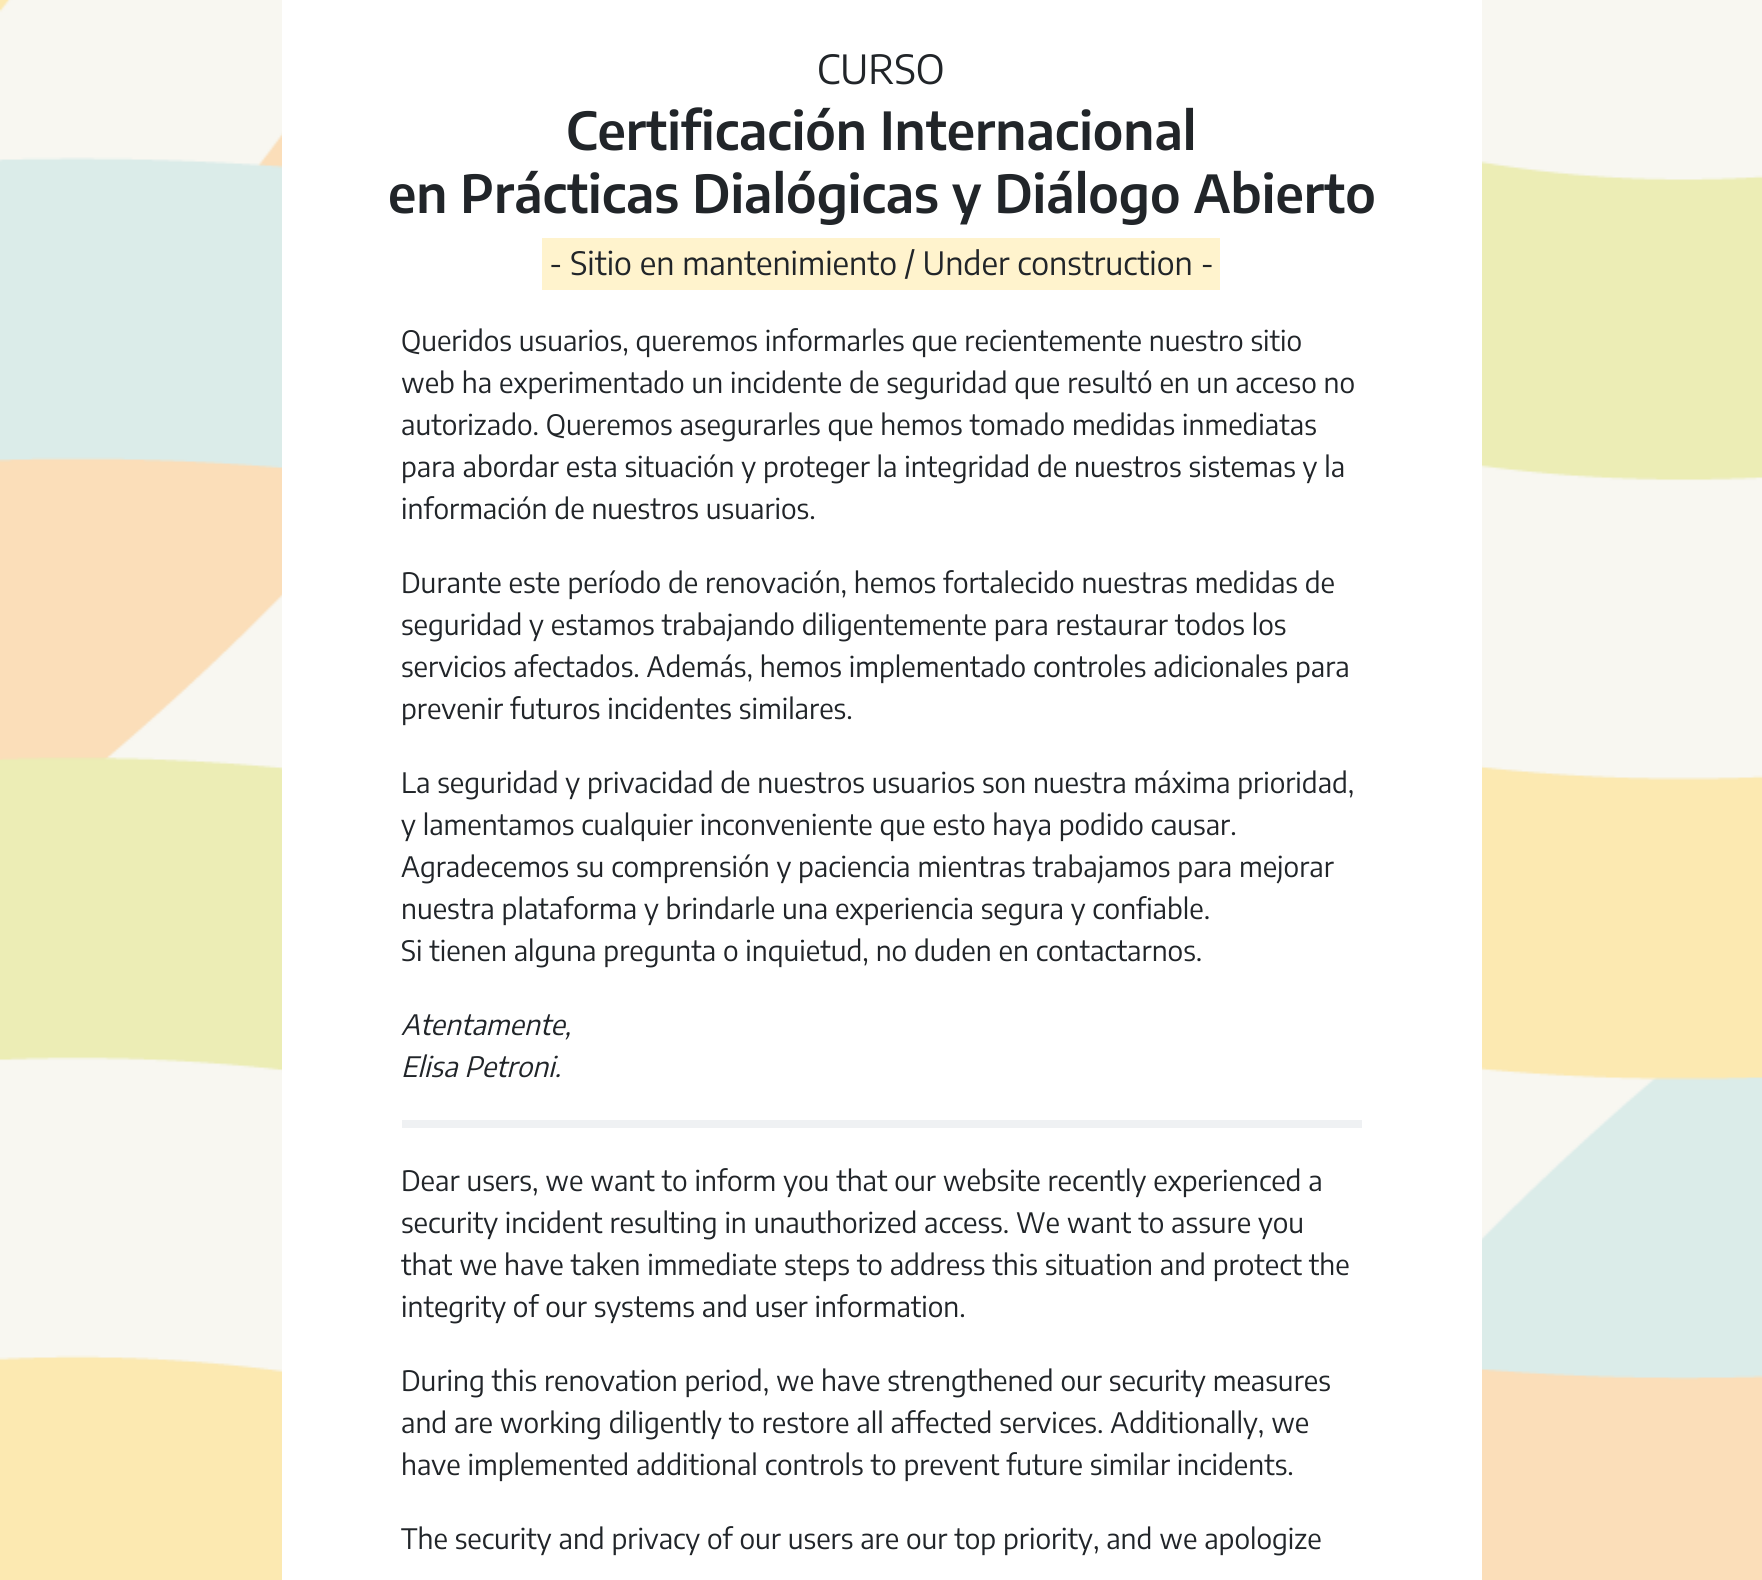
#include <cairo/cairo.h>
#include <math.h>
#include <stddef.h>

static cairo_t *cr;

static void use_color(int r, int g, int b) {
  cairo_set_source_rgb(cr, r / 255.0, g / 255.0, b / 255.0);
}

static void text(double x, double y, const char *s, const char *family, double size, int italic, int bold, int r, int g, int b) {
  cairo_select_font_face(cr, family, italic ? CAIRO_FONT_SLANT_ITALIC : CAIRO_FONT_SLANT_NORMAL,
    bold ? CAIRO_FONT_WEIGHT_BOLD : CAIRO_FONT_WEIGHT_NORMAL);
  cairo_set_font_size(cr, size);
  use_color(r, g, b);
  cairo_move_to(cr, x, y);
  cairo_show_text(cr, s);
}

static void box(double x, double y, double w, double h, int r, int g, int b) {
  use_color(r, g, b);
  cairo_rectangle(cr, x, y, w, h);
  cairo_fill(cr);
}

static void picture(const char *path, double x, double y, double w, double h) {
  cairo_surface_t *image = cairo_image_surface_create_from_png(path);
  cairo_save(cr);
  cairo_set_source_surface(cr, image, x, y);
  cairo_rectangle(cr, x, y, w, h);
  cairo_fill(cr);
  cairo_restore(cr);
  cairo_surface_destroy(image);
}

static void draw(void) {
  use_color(255, 255, 255);
  cairo_paint(cr);
  picture("img_01.png", 0, 0, 1762, 1580);
  box(282, 0, 1200, 1580, 255, 255, 255);
  box(542, 238, 678, 52, 255, 243, 205);
  box(402, 1120, 960, 8, 239, 241, 243);
  text(817, 84, "CURSO", "Encode Sans Condensed", 40, 0, 0, 33, 37, 41);
  text(566, 150, "Certificación Internacional", "Encode Sans Condensed SemiBold", 52.2, 0, 0, 33, 37, 41);
  text(388, 213, "en Prácticas Dialógicas y Diálogo Abierto", "Encode Sans Condensed SemiBold", 52.2, 0, 0, 33, 37, 41);
  text(549, 275, "- Sitio en mantenimiento / Under construction -", "Encode Sans Condensed", 32, 0, 0, 33, 37, 41);
  text(401, 351, "Queridos usuarios, queremos informarles que recientemente nuestro sitio", "Encode Sans Condensed", 28, 0, 0, 33, 37, 41);
  text(401, 393, "web ha experimentado un incidente de seguridad que resultó en un acceso no", "Encode Sans Condensed", 28, 0, 0, 33, 37, 41);
  text(401, 435, "autorizado. Queremos asegurarles que hemos tomado medidas inmediatas", "Encode Sans Condensed", 28, 0, 0, 33, 37, 41);
  text(401, 477, "para abordar esta situación y proteger la integridad de nuestros sistemas y la", "Encode Sans Condensed", 28, 0, 0, 33, 37, 41);
  text(401, 519, "información de nuestros usuarios.", "Encode Sans Condensed", 28, 0, 0, 33, 37, 41);
  text(401, 593, "Durante este período de renovación, hemos fortalecido nuestras medidas de", "Encode Sans Condensed", 28, 0, 0, 33, 37, 41);
  text(401, 635, "seguridad y estamos trabajando diligentemente para restaurar todos los", "Encode Sans Condensed", 28, 0, 0, 33, 37, 41);
  text(401, 677, "servicios afectados. Además, hemos implementado controles adicionales para", "Encode Sans Condensed", 28, 0, 0, 33, 37, 41);
  text(401, 719, "prevenir futuros incidentes similares.", "Encode Sans Condensed", 28, 0, 0, 33, 37, 41);
  text(401, 793, "La seguridad y privacidad de nuestros usuarios son nuestra máxima prioridad,", "Encode Sans Condensed", 28, 0, 0, 33, 37, 41);
  text(401, 835, "y lamentamos cualquier inconveniente que esto haya podido causar.", "Encode Sans Condensed", 28, 0, 0, 33, 37, 41);
  text(401, 877, "Agradecemos su comprensión y paciencia mientras trabajamos para mejorar", "Encode Sans Condensed", 28, 0, 0, 33, 37, 41);
  text(401, 919, "nuestra plataforma y brindarle una experiencia segura y confiable.", "Encode Sans Condensed", 28, 0, 0, 33, 37, 41);
  text(401, 961, "Si tienen alguna pregunta o inquietud, no duden en contactarnos.", "Encode Sans Condensed", 28, 0, 0, 33, 37, 41);
  text(401, 1035, "Atentamente,", "Encode Sans Condensed", 28, 1, 0, 33, 37, 41);
  text(401, 1077, "Elisa Petroni.", "Encode Sans Condensed", 28, 1, 0, 33, 37, 41);
  text(401, 1191, "Dear users, we want to inform you that our website recently experienced a", "Encode Sans Condensed", 28, 0, 0, 33, 37, 41);
  text(401, 1233, "security incident resulting in unauthorized access. We want to assure you", "Encode Sans Condensed", 28, 0, 0, 33, 37, 41);
  text(401, 1275, "that we have taken immediate steps to address this situation and protect the", "Encode Sans Condensed", 28, 0, 0, 33, 37, 41);
  text(401, 1317, "integrity of our systems and user information.", "Encode Sans Condensed", 28, 0, 0, 33, 37, 41);
  text(401, 1391, "During this renovation period, we have strengthened our security measures", "Encode Sans Condensed", 28, 0, 0, 33, 37, 41);
  text(401, 1433, "and are working diligently to restore all affected services. Additionally, we", "Encode Sans Condensed", 28, 0, 0, 33, 37, 41);
  text(401, 1475, "have implemented additional controls to prevent future similar incidents.", "Encode Sans Condensed", 28, 0, 0, 33, 37, 41);
  text(401, 1549, "The security and privacy of our users are our top priority, and we apologize", "Encode Sans Condensed", 28, 0, 0, 33, 37, 41);
}

int main(void) {
  cairo_surface_t *surface = cairo_image_surface_create(CAIRO_FORMAT_RGB24, 1762, 1580);
  cr = cairo_create(surface);
  cairo_font_options_t *options = cairo_font_options_create();
  cairo_font_options_set_hint_metrics(options, CAIRO_HINT_METRICS_OFF);
  cairo_font_options_set_hint_style(options, CAIRO_HINT_STYLE_NONE);
  cairo_set_font_options(cr, options);
  cairo_set_miter_limit(cr, 4);
  draw();
  cairo_surface_write_to_png(surface, "out.png");
  cairo_font_options_destroy(options);
  cairo_destroy(cr);
  cairo_surface_destroy(surface);
  return 0;
}
